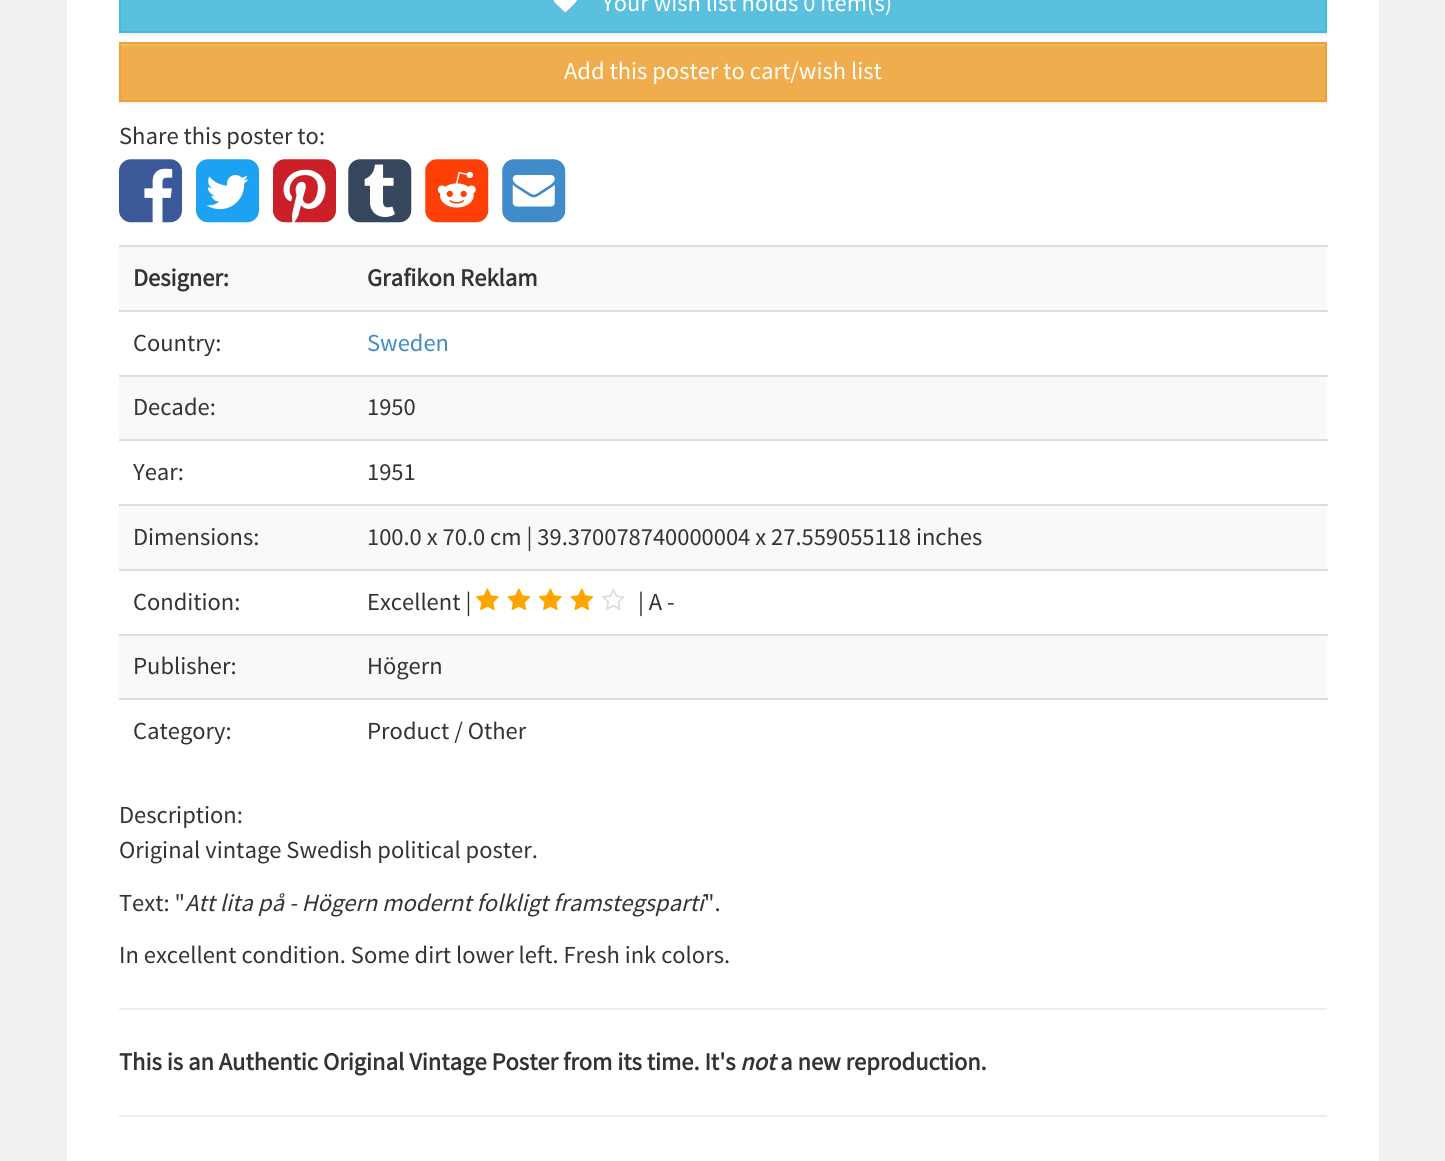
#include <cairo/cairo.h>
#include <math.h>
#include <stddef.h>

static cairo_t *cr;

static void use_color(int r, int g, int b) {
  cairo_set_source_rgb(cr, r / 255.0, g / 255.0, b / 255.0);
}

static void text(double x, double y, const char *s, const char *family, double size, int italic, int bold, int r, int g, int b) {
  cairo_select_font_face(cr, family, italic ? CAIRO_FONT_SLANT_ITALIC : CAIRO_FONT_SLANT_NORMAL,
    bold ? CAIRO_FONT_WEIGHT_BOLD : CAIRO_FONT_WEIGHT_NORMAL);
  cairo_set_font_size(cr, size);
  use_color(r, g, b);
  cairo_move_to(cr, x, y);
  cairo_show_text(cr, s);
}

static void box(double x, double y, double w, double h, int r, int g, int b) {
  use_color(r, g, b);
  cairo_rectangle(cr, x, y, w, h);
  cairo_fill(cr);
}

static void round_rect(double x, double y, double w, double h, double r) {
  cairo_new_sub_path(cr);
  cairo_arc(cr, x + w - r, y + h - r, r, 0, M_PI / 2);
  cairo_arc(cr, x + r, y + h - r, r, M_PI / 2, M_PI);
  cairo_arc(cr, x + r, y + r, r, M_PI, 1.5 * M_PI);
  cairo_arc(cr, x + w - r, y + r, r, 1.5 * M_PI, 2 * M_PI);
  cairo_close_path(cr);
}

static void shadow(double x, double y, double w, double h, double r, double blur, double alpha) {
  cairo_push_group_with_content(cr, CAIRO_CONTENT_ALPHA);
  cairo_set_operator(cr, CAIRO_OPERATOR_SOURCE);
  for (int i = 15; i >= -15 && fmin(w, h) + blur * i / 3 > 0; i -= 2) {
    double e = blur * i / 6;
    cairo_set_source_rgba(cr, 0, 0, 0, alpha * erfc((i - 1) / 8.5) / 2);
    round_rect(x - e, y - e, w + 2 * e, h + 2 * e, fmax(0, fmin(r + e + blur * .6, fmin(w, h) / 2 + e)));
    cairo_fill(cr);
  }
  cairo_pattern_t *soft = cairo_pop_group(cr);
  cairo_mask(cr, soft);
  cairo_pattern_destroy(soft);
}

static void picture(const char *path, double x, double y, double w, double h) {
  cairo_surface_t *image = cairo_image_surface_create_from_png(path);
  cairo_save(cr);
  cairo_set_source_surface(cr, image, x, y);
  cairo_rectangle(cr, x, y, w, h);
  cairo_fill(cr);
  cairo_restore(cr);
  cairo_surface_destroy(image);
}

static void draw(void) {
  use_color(241, 241, 241);
  cairo_paint(cr);
  box(67, 0, 1312, 1161, 255, 255, 255);
  use_color(0, 0, 0);
  shadow(119, -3, 1208, 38, 0, 1, 0.07);
  use_color(91, 192, 222);
  cairo_rectangle(cr, 120, -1, 1206, 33);
  cairo_fill_preserve(cr);
  use_color(70, 184, 218);
  cairo_stroke(cr);
  picture("img_01.png", 553, 0, 24, 13);
  use_color(0, 0, 0);
  shadow(119, 44, 1208, 59, 0, 1, 0.07);
  box(121, 46, 1204, 54, 240, 173, 78);
  box(121, 44, 1204, 2, 242, 185, 105);
  cairo_rectangle(cr, 120, 43, 1206, 58);
  use_color(238, 162, 54);
  cairo_stroke(cr);
  picture("img_02.png", 119, 159, 63, 64);
  picture("img_03.png", 196, 159, 63, 64);
  picture("img_04.png", 273, 159, 63, 64);
  picture("img_05.png", 348, 159, 64, 64);
  picture("img_06.png", 425, 159, 64, 64);
  picture("img_07.png", 502, 159, 64, 64);
  box(119, 247, 1208, 63, 249, 249, 249);
  box(119, 245, 1209, 2, 221, 221, 221);
  box(119, 310, 1209, 2, 221, 221, 221);
  box(119, 377, 1208, 62, 249, 249, 249);
  box(119, 375, 1209, 2, 221, 221, 221);
  box(119, 439, 1209, 2, 221, 221, 221);
  box(119, 506, 1208, 63, 249, 249, 249);
  box(119, 504, 1209, 2, 221, 221, 221);
  box(119, 569, 1209, 2, 221, 221, 221);
  picture("img_08.png", 476, 588, 23, 23);
  picture("img_09.png", 507, 588, 24, 23);
  picture("img_08.png", 539, 588, 23, 23);
  picture("img_09.png", 570, 588, 24, 23);
  picture("img_10.png", 602, 588, 23, 22);
  box(119, 636, 1208, 62, 249, 249, 249);
  box(119, 634, 1209, 2, 221, 221, 221);
  box(119, 698, 1209, 2, 221, 221, 221);
  box(119, 1008, 1208, 2, 238, 238, 238);
  box(119, 1115, 1208, 2, 238, 238, 238);
  text(602, 11, "Your wish list holds 0 item(s)", "Source Sans Pro", 24.5, 0, 0, 255, 255, 255);
  text(564, 79, "Add this poster to cart/wish list", "Source Sans Pro", 24.5, 0, 0, 255, 255, 255);
  text(119, 144, "Share this poster to:", "Source Sans Pro", 24.5, 0, 0, 51, 51, 51);
  text(133, 286, "Designer:", "Source Sans Pro", 24.5, 0, 1, 51, 51, 51);
  text(367, 286, "Grafikon Reklam", "Source Sans Pro", 24.5, 0, 1, 51, 51, 51);
  text(133, 351, "Country:", "Source Sans Pro", 24.5, 0, 0, 51, 51, 51);
  text(367, 351, "Sweden", "Source Sans Pro", 24.5, 0, 0, 66, 139, 202);
  text(133, 415, "Decade:", "Source Sans Pro", 24.5, 0, 0, 51, 51, 51);
  text(367, 415, "1950", "Source Sans Pro", 24.5, 0, 0, 51, 51, 51);
  text(133, 480, "Year:", "Source Sans Pro", 24.5, 0, 0, 51, 51, 51);
  text(367, 480, "1951", "Source Sans Pro", 24.5, 0, 0, 51, 51, 51);
  text(133, 545, "Dimensions:", "Source Sans Pro", 24.5, 0, 0, 51, 51, 51);
  text(367, 545, "100.0 x 70.0 cm | 39.370078740000004 x 27.559055118 inches", "Source Sans Pro", 24.5, 0, 0, 51, 51, 51);
  text(133, 610, "Condition:", "Source Sans Pro", 24.5, 0, 0, 51, 51, 51);
  text(367, 610, "Excellent |", "Source Sans Pro", 24.5, 0, 0, 51, 51, 51);
  text(638, 610, "| A -", "Source Sans Pro", 24.5, 0, 0, 51, 51, 51);
  text(133, 674, "Publisher:", "Source Sans Pro", 24.5, 0, 0, 51, 51, 51);
  text(367, 674, "Högern", "Source Sans Pro", 24.5, 0, 0, 51, 51, 51);
  text(133, 739, "Category:", "Source Sans Pro", 24.5, 0, 0, 51, 51, 51);
  text(367, 739, "Product / Other", "Source Sans Pro", 24.5, 0, 0, 51, 51, 51);
  text(119, 823, "Description:", "Source Sans Pro", 24.5, 0, 0, 51, 51, 51);
  text(119, 858, "Original vintage Swedish political poster.", "Source Sans Pro", 24.5, 0, 0, 51, 51, 51);
  text(119, 911, "Text: \"", "Source Sans Pro", 24.5, 0, 0, 51, 51, 51);
  text(185, 911, "Att lita på - Högern modernt folkligt framstegsparti", "Source Sans Pro", 24.5, 1, 0, 51, 51, 51);
  text(704, 911, "\".", "Source Sans Pro", 24.5, 0, 0, 51, 51, 51);
  text(119, 963, "In excellent condition. Some dirt lower left. Fresh ink colors.", "Source Sans Pro", 24.5, 0, 0, 51, 51, 51);
  text(119, 1070, "This is an Authentic Original Vintage Poster from its time. It's", "Source Sans Pro", 24.5, 0, 1, 51, 51, 51);
  text(740, 1070, "not", "Source Sans Pro", 24.5, 1, 1, 51, 51, 51);
  text(780, 1070, "a new reproduction.", "Source Sans Pro", 24.5, 0, 1, 51, 51, 51);
}

int main(void) {
  cairo_surface_t *surface = cairo_image_surface_create(CAIRO_FORMAT_RGB24, 1445, 1161);
  cr = cairo_create(surface);
  cairo_font_options_t *options = cairo_font_options_create();
  cairo_font_options_set_hint_metrics(options, CAIRO_HINT_METRICS_OFF);
  cairo_font_options_set_hint_style(options, CAIRO_HINT_STYLE_NONE);
  cairo_set_font_options(cr, options);
  cairo_set_miter_limit(cr, 4);
  draw();
  cairo_surface_write_to_png(surface, "out.png");
  cairo_font_options_destroy(options);
  cairo_destroy(cr);
  cairo_surface_destroy(surface);
  return 0;
}
